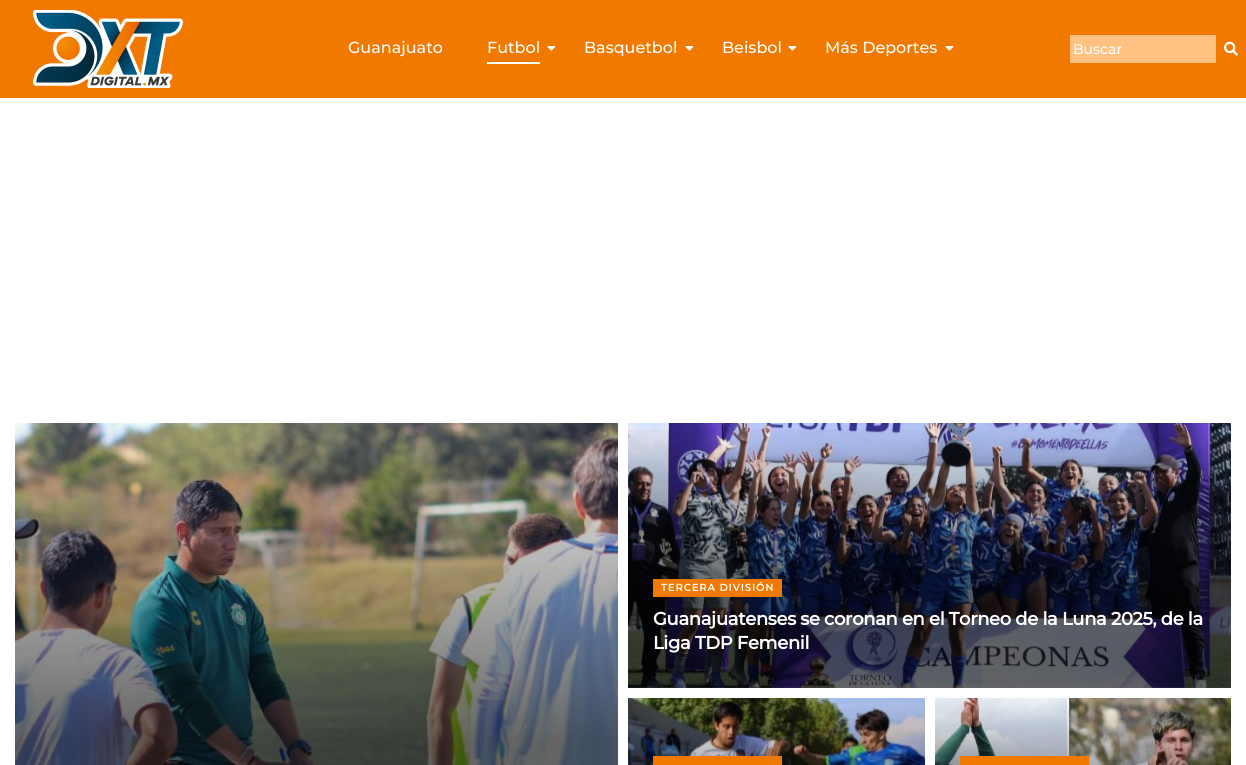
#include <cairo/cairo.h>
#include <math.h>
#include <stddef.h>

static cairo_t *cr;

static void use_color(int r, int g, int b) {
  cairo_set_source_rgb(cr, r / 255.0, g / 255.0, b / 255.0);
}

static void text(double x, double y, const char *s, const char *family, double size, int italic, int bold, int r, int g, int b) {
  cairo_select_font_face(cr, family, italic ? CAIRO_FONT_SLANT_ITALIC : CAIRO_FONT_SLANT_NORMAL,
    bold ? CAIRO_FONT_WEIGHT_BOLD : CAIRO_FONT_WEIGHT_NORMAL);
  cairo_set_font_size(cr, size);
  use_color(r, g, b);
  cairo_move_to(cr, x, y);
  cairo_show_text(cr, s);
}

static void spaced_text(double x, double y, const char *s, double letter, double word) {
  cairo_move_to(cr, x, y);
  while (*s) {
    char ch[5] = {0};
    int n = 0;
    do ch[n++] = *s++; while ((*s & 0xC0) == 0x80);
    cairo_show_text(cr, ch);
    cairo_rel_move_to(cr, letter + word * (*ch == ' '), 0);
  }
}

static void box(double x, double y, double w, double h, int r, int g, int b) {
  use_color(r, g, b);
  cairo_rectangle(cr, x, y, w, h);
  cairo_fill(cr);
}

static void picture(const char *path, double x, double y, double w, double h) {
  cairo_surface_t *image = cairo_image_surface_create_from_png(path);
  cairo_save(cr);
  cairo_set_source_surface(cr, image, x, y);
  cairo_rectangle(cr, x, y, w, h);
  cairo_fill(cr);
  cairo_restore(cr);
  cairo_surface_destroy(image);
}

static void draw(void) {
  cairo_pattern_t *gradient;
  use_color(255, 255, 255);
  cairo_paint(cr);
  box(0, 0, 1246, 98, 242, 121, 0);
  picture("img_01.png", 33, 10, 150, 78);
  picture("img_02.png", 547, 46, 9, 5);
  box(487, 62, 53, 2, 255, 255, 255);
  picture("img_02.png", 685, 46, 9, 5);
  picture("img_02.png", 788, 46, 9, 5);
  picture("img_02.png", 945, 46, 9, 5);
  box(1070, 35, 146, 28, 255, 193, 130);
  picture("img_03.png", 1224, 41, 14, 15);
  picture("img_04.png", 15, 423, 603, 342);
  picture("img_05.png", 628, 423, 603, 265);
  gradient = cairo_pattern_create_linear(915, 423, 915, 688);
  cairo_pattern_add_color_stop_rgba(gradient, 0, 0, 0, 0, 0);
  cairo_pattern_add_color_stop_rgba(gradient, 0.65, 0, 0, 0, 0.6);
  cairo_pattern_add_color_stop_rgba(gradient, 1, 0, 0, 0, 0.6);
  cairo_set_source(cr, gradient);
  cairo_pattern_destroy(gradient);
  cairo_rectangle(cr, 628, 429, 603, 259);
  cairo_fill(cr);
  box(653, 579, 129, 18, 242, 121, 0);
  picture("img_06.png", 628, 698, 297, 67);
  box(653, 756, 129, 9, 242, 121, 0);
  picture("img_07.png", 935, 698, 296, 67);
  box(960, 756, 129, 9, 242, 121, 0);
  text(348, 53, "Guanajuato", "Montserrat Thin", 16, 0, 0, 255, 255, 255);
  text(487, 53, "Futbol", "Montserrat Thin", 16, 0, 0, 255, 255, 255);
  text(584, 53, "Basquetbol", "Montserrat Thin", 16, 0, 0, 255, 255, 255);
  text(722, 53, "Beisbol", "Montserrat Thin", 16, 0, 0, 255, 255, 255);
  text(825, 53, "Más Deportes", "Montserrat Thin", 16, 0, 0, 255, 255, 255);
  text(1073, 54, "Buscar", "Montserrat Thin", 14, 0, 0, 255, 255, 255);
  cairo_select_font_face(cr, "Montserrat", CAIRO_FONT_SLANT_NORMAL, CAIRO_FONT_WEIGHT_BOLD);
  cairo_set_font_size(cr, 9.9);
  spaced_text(661, 591, "TERCERA DIVISIÓN", 1, 0);
  cairo_set_font_size(cr, 18);
  spaced_text(653, 625, "Guanajuatenses se coronan en el Torneo de la Luna 2025, de la", -0.35, 0);
  spaced_text(653, 649, "Liga TDP Femenil", -0.35, 0);
  text(768, 686, "2", "Montserrat Thin", 11, 0, 0, 29, 33, 38);
}

int main(void) {
  cairo_surface_t *surface = cairo_image_surface_create(CAIRO_FORMAT_RGB24, 1246, 765);
  cr = cairo_create(surface);
  cairo_font_options_t *options = cairo_font_options_create();
  cairo_font_options_set_hint_metrics(options, CAIRO_HINT_METRICS_OFF);
  cairo_font_options_set_hint_style(options, CAIRO_HINT_STYLE_NONE);
  cairo_set_font_options(cr, options);
  cairo_set_miter_limit(cr, 4);
  draw();
  cairo_surface_write_to_png(surface, "out.png");
  cairo_font_options_destroy(options);
  cairo_destroy(cr);
  cairo_surface_destroy(surface);
  return 0;
}
